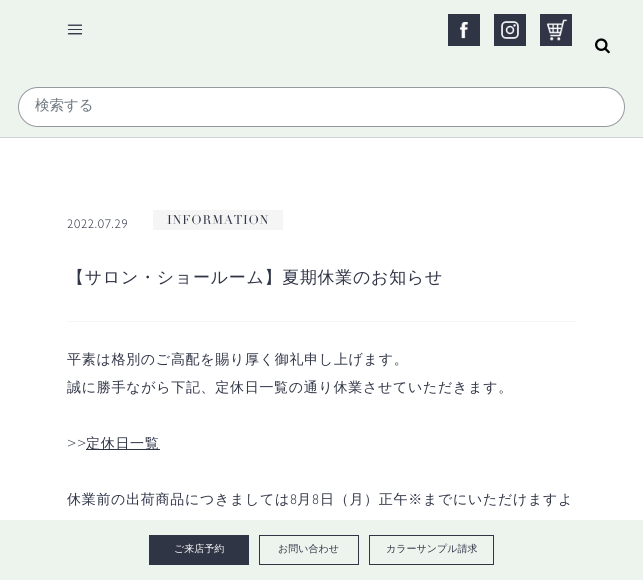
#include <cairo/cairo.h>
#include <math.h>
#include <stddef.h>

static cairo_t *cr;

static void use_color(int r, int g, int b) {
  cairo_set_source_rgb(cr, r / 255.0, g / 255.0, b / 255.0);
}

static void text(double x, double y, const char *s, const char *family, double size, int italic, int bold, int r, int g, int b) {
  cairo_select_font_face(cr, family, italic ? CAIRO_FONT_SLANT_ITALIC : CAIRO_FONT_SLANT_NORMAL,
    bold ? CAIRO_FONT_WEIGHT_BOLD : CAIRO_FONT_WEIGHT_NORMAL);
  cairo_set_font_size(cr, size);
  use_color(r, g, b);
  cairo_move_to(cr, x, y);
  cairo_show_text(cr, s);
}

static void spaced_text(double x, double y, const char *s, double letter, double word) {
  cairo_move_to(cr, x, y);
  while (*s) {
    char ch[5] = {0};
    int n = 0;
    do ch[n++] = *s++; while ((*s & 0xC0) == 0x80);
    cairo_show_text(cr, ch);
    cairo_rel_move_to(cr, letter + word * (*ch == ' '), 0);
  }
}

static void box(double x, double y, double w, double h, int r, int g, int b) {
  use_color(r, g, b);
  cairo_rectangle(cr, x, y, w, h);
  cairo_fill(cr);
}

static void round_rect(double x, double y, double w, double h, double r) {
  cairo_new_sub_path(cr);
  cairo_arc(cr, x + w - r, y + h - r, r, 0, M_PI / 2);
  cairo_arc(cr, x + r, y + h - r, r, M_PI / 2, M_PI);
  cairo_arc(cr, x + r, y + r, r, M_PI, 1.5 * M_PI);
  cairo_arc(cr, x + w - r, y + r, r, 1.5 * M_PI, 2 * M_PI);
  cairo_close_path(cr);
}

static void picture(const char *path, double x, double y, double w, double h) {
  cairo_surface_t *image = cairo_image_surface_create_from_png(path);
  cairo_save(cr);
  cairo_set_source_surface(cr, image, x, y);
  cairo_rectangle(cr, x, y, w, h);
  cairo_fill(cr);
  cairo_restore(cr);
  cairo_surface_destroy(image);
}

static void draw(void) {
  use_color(255, 255, 255);
  cairo_paint(cr);
  box(0, 0, 643, 137, 237, 243, 237);
  box(0, 137, 643, 1, 206, 212, 218);
  picture("img_01.png", 448, 14, 32, 32);
  picture("img_02.png", 494, 14, 32, 32);
  picture("img_03.png", 540, 14, 32, 32);
  picture("img_04.png", 595, 38, 15, 16);
  use_color(255, 255, 255);
  round_rect(18.5, 87.5, 606, 39, 19.5);
  cairo_fill_preserve(cr);
  use_color(150, 153, 161);
  cairo_set_line_width(cr, 1);
  cairo_stroke(cr);
  picture("img_05.png", 67, 24, 15, 11);
  box(0, 520, 643, 60, 237, 243, 237);
  box(149, 535, 100, 30, 48, 53, 70);
  cairo_rectangle(cr, 259.5, 535.5, 99, 29);
  cairo_stroke(cr);
  cairo_rectangle(cr, 369.5, 535.5, 124, 29);
  cairo_stroke(cr);
  box(67, 321, 510, 1, 245, 245, 245);
  box(153, 210, 130, 20, 245, 245, 245);
  box(86, 449, 74, 1, 48, 53, 70);
  text(35, 110, "検索する", "WenQuanYi Zen Hei Medium", 14.5, 0, 0, 108, 117, 125);
  text(174, 552, "ご来店予約", "WenQuanYi Zen Hei Medium", 10, 0, 0, 255, 255, 255);
  text(278, 552, "お問い合わせ", "WenQuanYi Zen Hei Medium", 10, 0, 0, 48, 53, 70);
  text(386, 552, "カラーサンプル請求", "WenQuanYi Zen Hei Medium", 10, 0, 0, 48, 53, 70);
  cairo_select_font_face(cr, "Gill Sans Light", CAIRO_FONT_SLANT_NORMAL, CAIRO_FONT_WEIGHT_NORMAL);
  cairo_set_font_size(cr, 12.5);
  spaced_text(67, 228, "2022.07.29", 0.7, 0);
  cairo_select_font_face(cr, "Didot", CAIRO_FONT_SLANT_NORMAL, CAIRO_FONT_WEIGHT_NORMAL);
  spaced_text(167, 224, "INFORMATION", 0.7, 0);
  cairo_select_font_face(cr, "WenQuanYi Zen Hei Medium", CAIRO_FONT_SLANT_NORMAL, CAIRO_FONT_WEIGHT_NORMAL);
  cairo_set_font_size(cr, 17);
  spaced_text(67, 283, "【サロン・ショールーム】夏期休業のお知らせ", 0.7, 0);
  cairo_set_font_size(cr, 14);
  spaced_text(67, 364, "平素は格別のご高配を賜り厚く御礼申し上げます。", 0.7, 0);
  spaced_text(67, 392, "誠に勝手ながら下記、定休日一覧の通り休業させていただきます。", 0.7, 0);
  cairo_select_font_face(cr, "Gill Sans Light", CAIRO_FONT_SLANT_NORMAL, CAIRO_FONT_WEIGHT_NORMAL);
  spaced_text(67, 448, ">>", 0.7, 0);
  cairo_select_font_face(cr, "WenQuanYi Zen Hei Medium", CAIRO_FONT_SLANT_NORMAL, CAIRO_FONT_WEIGHT_NORMAL);
  spaced_text(86, 448, "定休日一覧", 0.7, 0);
  spaced_text(67, 504, "休業前の出荷商品につきましては", 0.7, 0);
  cairo_select_font_face(cr, "Gill Sans Light", CAIRO_FONT_SLANT_NORMAL, CAIRO_FONT_WEIGHT_NORMAL);
  spaced_text(290, 504, "8", 0.7, 0);
  cairo_select_font_face(cr, "WenQuanYi Zen Hei Medium", CAIRO_FONT_SLANT_NORMAL, CAIRO_FONT_WEIGHT_NORMAL);
  spaced_text(297, 504, "月", 0.7, 0);
  cairo_select_font_face(cr, "Gill Sans Light", CAIRO_FONT_SLANT_NORMAL, CAIRO_FONT_WEIGHT_NORMAL);
  spaced_text(312, 504, "8", 0.7, 0);
  cairo_select_font_face(cr, "WenQuanYi Zen Hei Medium", CAIRO_FONT_SLANT_NORMAL, CAIRO_FONT_WEIGHT_NORMAL);
  spaced_text(320, 504, "日（月）正午※までにいただけますよ", 0.7, 0);
}

int main(void) {
  cairo_surface_t *surface = cairo_image_surface_create(CAIRO_FORMAT_RGB24, 643, 580);
  cr = cairo_create(surface);
  cairo_font_options_t *options = cairo_font_options_create();
  cairo_font_options_set_hint_metrics(options, CAIRO_HINT_METRICS_OFF);
  cairo_font_options_set_hint_style(options, CAIRO_HINT_STYLE_NONE);
  cairo_set_font_options(cr, options);
  cairo_set_miter_limit(cr, 4);
  draw();
  cairo_surface_write_to_png(surface, "out.png");
  cairo_font_options_destroy(options);
  cairo_destroy(cr);
  cairo_surface_destroy(surface);
  return 0;
}
